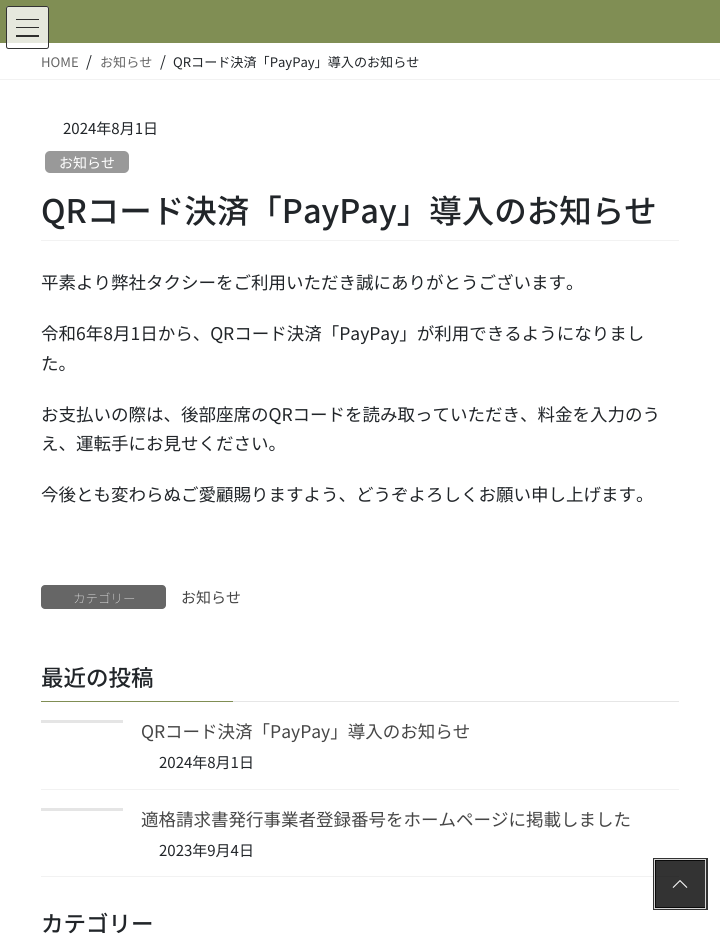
#include <cairo/cairo.h>
#include <math.h>
#include <stddef.h>

static cairo_t *cr;

static void use_color(int r, int g, int b) {
  cairo_set_source_rgb(cr, r / 255.0, g / 255.0, b / 255.0);
}

static void text(double x, double y, const char *s, const char *family, double size, int italic, int bold, int r, int g, int b) {
  cairo_select_font_face(cr, family, italic ? CAIRO_FONT_SLANT_ITALIC : CAIRO_FONT_SLANT_NORMAL,
    bold ? CAIRO_FONT_WEIGHT_BOLD : CAIRO_FONT_WEIGHT_NORMAL);
  cairo_set_font_size(cr, size);
  use_color(r, g, b);
  cairo_move_to(cr, x, y);
  cairo_show_text(cr, s);
}

static void box(double x, double y, double w, double h, int r, int g, int b) {
  use_color(r, g, b);
  cairo_rectangle(cr, x, y, w, h);
  cairo_fill(cr);
}

static void round_rect(double x, double y, double w, double h, double r) {
  cairo_new_sub_path(cr);
  cairo_arc(cr, x + w - r, y + h - r, r, 0, M_PI / 2);
  cairo_arc(cr, x + r, y + h - r, r, M_PI / 2, M_PI);
  cairo_arc(cr, x + r, y + r, r, M_PI, 1.5 * M_PI);
  cairo_arc(cr, x + w - r, y + r, r, 1.5 * M_PI, 2 * M_PI);
  cairo_close_path(cr);
}

static void picture(const char *path, double x, double y, double w, double h) {
  cairo_surface_t *image = cairo_image_surface_create_from_png(path);
  cairo_save(cr);
  cairo_set_source_surface(cr, image, x, y);
  cairo_rectangle(cr, x, y, w, h);
  cairo_fill(cr);
  cairo_restore(cr);
  cairo_surface_destroy(image);
}

static void draw(void) {
  use_color(255, 255, 255);
  cairo_paint(cr);
  box(0, 0, 720, 43, 128, 142, 84);
  cairo_set_source_rgba(cr, 1, 1, 1, 0.8);
  round_rect(6, 6, 43, 43, 2.5);
  cairo_fill(cr);
  box(16, 19, 23, 1, 46, 46, 44);
  box(16, 27, 23, 1, 46, 46, 44);
  box(16, 35, 23, 2, 46, 46, 44);
  round_rect(6.5, 6.5, 42, 42, 2);
  use_color(51, 51, 51);
  cairo_set_line_width(cr, 1);
  cairo_stroke(cr);
  box(0, 79, 720, 1, 242, 242, 242);
  box(41, 240, 638, 1, 242, 242, 242);
  use_color(153, 153, 153);
  round_rect(45, 151, 84, 22, 5);
  cairo_fill(cr);
  use_color(102, 102, 102);
  round_rect(41, 585, 125, 24, 4);
  cairo_fill(cr);
  box(233, 701, 446, 1, 230, 230, 230);
  box(41, 701, 192, 1, 128, 142, 84);
  box(41, 789, 638, 1, 242, 242, 242);
  box(41, 720, 82, 3, 229, 229, 229);
  box(41, 876, 638, 1, 242, 242, 242);
  box(41, 808, 82, 3, 229, 229, 229);
  cairo_rectangle(cr, 654.5, 859.5, 52, 49);
  cairo_set_source_rgba(cr, 0, 0, 0, 0.8);
  cairo_set_line_width(cr, 3);
  cairo_stroke(cr);
  cairo_rectangle(cr, 654.5, 859.5, 51, 49);
  cairo_set_source_rgba(cr, 1, 1, 1, 0.8);
  cairo_set_line_width(cr, 1);
  cairo_stroke(cr);
  cairo_set_source_rgba(cr, 0, 0, 0, 0.8);
  cairo_rectangle(cr, 655, 860, 50, 48);
  cairo_fill(cr);
  picture("img_01.png", 672, 880, 16, 8);
  text(41, 67, "HOME", "Noto Sans JP", 13.1, 0, 0, 102, 102, 102);
  text(86, 67, "/", "Noto Sans JP", 15, 0, 0, 33, 37, 41);
  text(100, 67, "お知らせ", "Noto Sans JP", 13.1, 0, 0, 102, 102, 102);
  text(160, 67, "/", "Noto Sans JP", 15, 0, 0, 33, 37, 41);
  text(173, 67, "QRコード決済「PayPay」導入のお知らせ", "Noto Sans JP", 13.1, 0, 0, 33, 37, 41);
  text(63, 134, "2024年8月1日", "Noto Sans JP", 15, 0, 0, 33, 37, 41);
  text(59, 168, "お知らせ", "Noto Sans JP", 14, 0, 0, 255, 255, 255);
  text(41, 223, "QRコード決済「PayPay」導入のお知らせ", "Noto Sans JP Medium", 32.5, 0, 0, 33, 37, 41);
  text(41, 289, "平素より弊社タクシーをご利用いただき誠にありがとうございます。", "Noto Sans JP", 17.5, 0, 0, 33, 37, 41);
  text(41, 340, "令和6年8月1日から、QRコード決済「PayPay」が利用できるようになりまし", "Noto Sans JP", 17.5, 0, 0, 33, 37, 41);
  text(41, 370, "た。", "Noto Sans JP", 17.5, 0, 0, 33, 37, 41);
  text(41, 421, "お支払いの際は、後部座席のQRコードを読み取っていただき、料金を入力のう", "Noto Sans JP", 17.5, 0, 0, 33, 37, 41);
  text(41, 450, "え、運転手にお見せください。", "Noto Sans JP", 17.5, 0, 0, 33, 37, 41);
  text(41, 501, "今後とも変わらぬご愛顧賜りますよう、どうぞよろしくお願い申し上げます。", "Noto Sans JP", 17.5, 0, 0, 33, 37, 41);
  text(73, 603, "カテゴリー", "Noto Sans JP Thin", 12.5, 0, 0, 255, 255, 255);
  text(181, 603, "お知らせ", "Noto Sans JP", 15, 0, 0, 70, 70, 70);
  text(41, 686, "最近の投稿", "Noto Sans JP Medium", 22.5, 0, 0, 33, 37, 41);
  text(141, 738, "QRコード決済「PayPay」導入のお知らせ", "Noto Sans JP", 17.5, 0, 0, 70, 70, 70);
  text(159, 768, "2024年8月1日", "Noto Sans JP", 15, 0, 0, 33, 37, 41);
  text(141, 826, "適格請求書発行事業者登録番号をホームページに掲載しました", "Noto Sans JP", 17.5, 0, 0, 70, 70, 70);
  text(159, 856, "2023年9月4日", "Noto Sans JP", 15, 0, 0, 33, 37, 41);
  text(41, 932, "カテゴリー", "Noto Sans JP Medium", 22.5, 0, 0, 33, 37, 41);
}

int main(void) {
  cairo_surface_t *surface = cairo_image_surface_create(CAIRO_FORMAT_RGB24, 720, 934);
  cr = cairo_create(surface);
  cairo_font_options_t *options = cairo_font_options_create();
  cairo_font_options_set_hint_metrics(options, CAIRO_HINT_METRICS_OFF);
  cairo_font_options_set_hint_style(options, CAIRO_HINT_STYLE_NONE);
  cairo_set_font_options(cr, options);
  cairo_set_miter_limit(cr, 4);
  draw();
  cairo_surface_write_to_png(surface, "out.png");
  cairo_font_options_destroy(options);
  cairo_destroy(cr);
  cairo_surface_destroy(surface);
  return 0;
}
